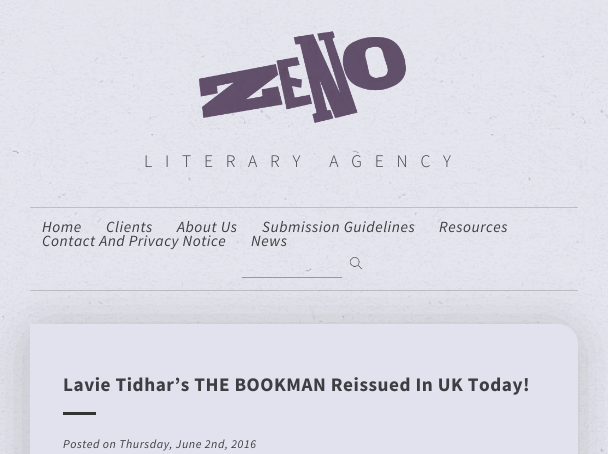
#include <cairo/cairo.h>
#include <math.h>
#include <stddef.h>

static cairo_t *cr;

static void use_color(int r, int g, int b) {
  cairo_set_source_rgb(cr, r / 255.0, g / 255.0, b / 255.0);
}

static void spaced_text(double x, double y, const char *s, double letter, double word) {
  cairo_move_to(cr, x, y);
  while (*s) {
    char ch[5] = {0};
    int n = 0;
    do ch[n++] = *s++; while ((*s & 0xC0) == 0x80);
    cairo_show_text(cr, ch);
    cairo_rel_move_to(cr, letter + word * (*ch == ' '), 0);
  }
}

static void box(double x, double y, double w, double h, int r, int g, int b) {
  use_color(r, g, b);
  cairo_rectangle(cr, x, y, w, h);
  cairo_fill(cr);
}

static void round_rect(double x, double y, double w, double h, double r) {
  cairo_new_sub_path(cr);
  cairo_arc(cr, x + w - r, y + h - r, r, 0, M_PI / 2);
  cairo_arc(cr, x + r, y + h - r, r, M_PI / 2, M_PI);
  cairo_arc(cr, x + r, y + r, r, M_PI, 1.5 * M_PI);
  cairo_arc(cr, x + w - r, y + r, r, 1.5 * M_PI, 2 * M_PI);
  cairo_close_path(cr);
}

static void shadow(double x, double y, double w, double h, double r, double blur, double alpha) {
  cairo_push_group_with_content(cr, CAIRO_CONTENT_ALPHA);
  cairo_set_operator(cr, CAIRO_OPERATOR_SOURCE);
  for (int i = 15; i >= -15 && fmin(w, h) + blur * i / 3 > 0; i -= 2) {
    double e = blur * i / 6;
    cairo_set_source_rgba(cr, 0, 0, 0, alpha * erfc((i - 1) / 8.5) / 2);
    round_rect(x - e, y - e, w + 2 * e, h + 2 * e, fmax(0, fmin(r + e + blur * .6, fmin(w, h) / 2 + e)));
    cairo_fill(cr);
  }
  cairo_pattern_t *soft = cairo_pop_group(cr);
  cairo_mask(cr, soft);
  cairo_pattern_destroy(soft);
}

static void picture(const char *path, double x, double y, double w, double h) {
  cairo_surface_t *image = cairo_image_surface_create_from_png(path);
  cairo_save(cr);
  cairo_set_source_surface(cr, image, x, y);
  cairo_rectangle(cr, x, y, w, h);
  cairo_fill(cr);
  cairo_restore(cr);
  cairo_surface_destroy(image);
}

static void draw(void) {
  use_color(255, 255, 255);
  cairo_paint(cr);
  picture("img_01.png", 0, 0, 608, 454);
  picture("img_02.png", 199, 31, 207, 92);
  cairo_set_source_rgba(cr, 0, 0, 0, 0.17);
  cairo_rectangle(cr, 30, 207, 548, 1);
  cairo_fill(cr);
  cairo_rectangle(cr, 30, 290, 548, 1);
  cairo_fill(cr);
  picture("img_03.png", 349, 257, 13, 13);
  box(242, 277, 100, 1, 153, 153, 153);
  use_color(33, 33, 33);
  shadow(26, 326, 550, 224, 21, 25, 0.2);
  use_color(226, 226, 238);
  cairo_new_path(cr);
  cairo_move_to(cr, 30, 324);
  cairo_line_to(cr, 558, 324);
  cairo_curve_to(cr, 569, 324, 578, 333, 578, 344);
  cairo_line_to(cr, 578, 454);
  cairo_curve_to(cr, 578, 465, 569, 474, 558, 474);
  cairo_line_to(cr, 30, 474);
  cairo_close_path(cr);
  cairo_fill(cr);
  box(63, 412, 33, 3, 51, 51, 51);
  cairo_select_font_face(cr, "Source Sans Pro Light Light", CAIRO_FONT_SLANT_NORMAL, CAIRO_FONT_WEIGHT_NORMAL);
  cairo_set_font_size(cr, 17.6);
  use_color(61, 61, 66);
  spaced_text(144, 167, "LITERARY AGENCY", 12.75, 0);
  cairo_select_font_face(cr, "Source Sans Pro", CAIRO_FONT_SLANT_ITALIC, CAIRO_FONT_WEIGHT_NORMAL);
  cairo_set_font_size(cr, 15.5);
  spaced_text(42, 232, "Home", 0.55, 0);
  spaced_text(106, 232, "Clients", 0.55, 0);
  spaced_text(177, 232, "About Us", 0.55, 0);
  spaced_text(262, 232, "Submission Guidelines", 0.55, 0);
  spaced_text(439, 232, "Resources", 0.55, 0);
  spaced_text(42, 246, "Contact And Privacy Notice", 0.55, 0);
  spaced_text(251, 246, "News", 0.55, 0);
  cairo_select_font_face(cr, "Source Sans Pro", CAIRO_FONT_SLANT_NORMAL, CAIRO_FONT_WEIGHT_BOLD);
  cairo_set_font_size(cr, 19.2);
  spaced_text(63, 391, "Lavie Tidhar’s THE BOOKMAN Reissued In UK Today!", 0.55, 0);
  cairo_select_font_face(cr, "Source Sans Pro", CAIRO_FONT_SLANT_ITALIC, CAIRO_FONT_WEIGHT_NORMAL);
  cairo_set_font_size(cr, 12);
  spaced_text(63, 448, "Posted on Thursday, June 2nd, 2016", 0.55, 0);
}

int main(void) {
  cairo_surface_t *surface = cairo_image_surface_create(CAIRO_FORMAT_RGB24, 608, 454);
  cr = cairo_create(surface);
  cairo_font_options_t *options = cairo_font_options_create();
  cairo_font_options_set_hint_metrics(options, CAIRO_HINT_METRICS_OFF);
  cairo_font_options_set_hint_style(options, CAIRO_HINT_STYLE_NONE);
  cairo_set_font_options(cr, options);
  cairo_set_miter_limit(cr, 4);
  draw();
  cairo_surface_write_to_png(surface, "out.png");
  cairo_font_options_destroy(options);
  cairo_destroy(cr);
  cairo_surface_destroy(surface);
  return 0;
}
